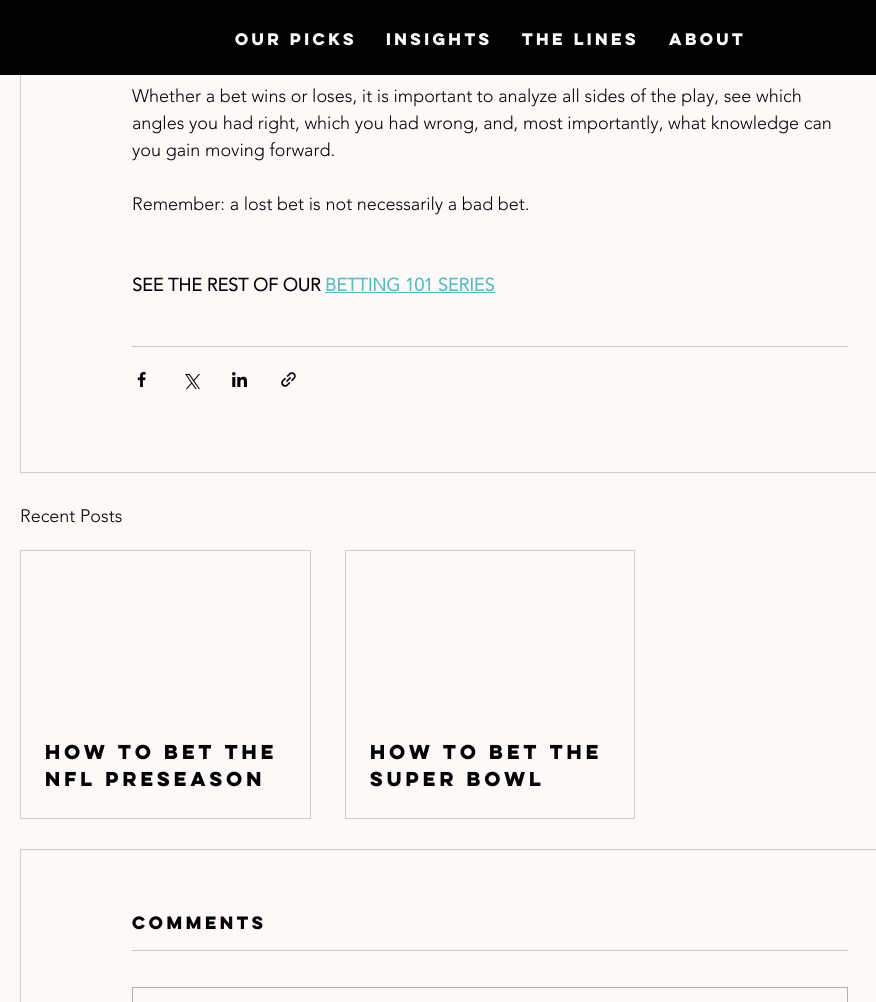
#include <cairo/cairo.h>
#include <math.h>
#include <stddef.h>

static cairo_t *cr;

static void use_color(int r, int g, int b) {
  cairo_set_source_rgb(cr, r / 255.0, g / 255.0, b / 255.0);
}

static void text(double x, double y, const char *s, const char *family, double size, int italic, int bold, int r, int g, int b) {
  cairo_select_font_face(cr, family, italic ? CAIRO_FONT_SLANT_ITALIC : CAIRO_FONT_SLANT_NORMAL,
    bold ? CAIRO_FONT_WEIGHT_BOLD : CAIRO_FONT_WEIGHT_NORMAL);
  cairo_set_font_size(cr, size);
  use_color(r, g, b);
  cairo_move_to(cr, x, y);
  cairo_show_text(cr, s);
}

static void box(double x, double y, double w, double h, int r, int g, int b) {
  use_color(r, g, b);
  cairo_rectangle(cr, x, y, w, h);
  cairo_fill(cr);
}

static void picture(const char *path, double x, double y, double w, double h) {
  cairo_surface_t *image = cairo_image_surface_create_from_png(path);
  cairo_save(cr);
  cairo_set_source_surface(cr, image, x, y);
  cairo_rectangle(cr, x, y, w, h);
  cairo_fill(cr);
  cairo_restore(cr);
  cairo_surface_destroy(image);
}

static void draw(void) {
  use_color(253, 249, 249);
  cairo_paint(cr);
  cairo_rectangle(cr, 20.5, -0.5, 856, 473);
  use_color(206, 203, 203);
  cairo_set_line_width(cr, 1);
  cairo_stroke(cr);
  box(0, 0, 876, 75, 0, 0, 0);
  box(325, 292, 170, 1, 87, 187, 191);
  box(132, 346, 716, 1, 202, 199, 199);
  picture("img_01.png", 137, 372, 9, 15);
  picture("img_02.png", 185, 374, 15, 15);
  picture("img_03.png", 232, 372, 15, 15);
  picture("img_04.png", 281, 372, 15, 15);
  cairo_rectangle(cr, 20.5, 550.5, 290, 268);
  use_color(206, 203, 203);
  cairo_stroke(cr);
  cairo_rectangle(cr, 345.5, 550.5, 289, 268);
  cairo_stroke(cr);
  cairo_rectangle(cr, 20.5, 849.5, 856, 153);
  cairo_stroke(cr);
  box(132, 950, 716, 1, 202, 199, 199);
  cairo_rectangle(cr, 132.5, 987.5, 715, 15);
  use_color(177, 174, 174);
  cairo_stroke(cr);
  text(235, 45, "Our Picks", "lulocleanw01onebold", 15, 0, 1, 253, 249, 249);
  text(386, 45, "Insights", "lulocleanw01onebold", 15, 0, 1, 253, 249, 249);
  text(522, 45, "The Lines", "lulocleanw01onebold", 15, 0, 1, 253, 249, 249);
  text(669, 45, "About", "lulocleanw01onebold", 15, 0, 1, 253, 249, 249);
  text(132, 102, "Whether a bet wins or loses, it is important to analyze all sides of the play, see which", "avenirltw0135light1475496 Light", 18, 0, 0, 0, 0, 0);
  text(132, 129, "angles you had right, which you had wrong, and, most importantly, what knowledge can", "avenirltw0135light1475496 Light", 18, 0, 0, 0, 0, 0);
  text(132, 156, "you gain moving forward.", "avenirltw0135light1475496 Light", 18, 0, 0, 0, 0, 0);
  text(132, 210, "Remember: a lost bet is not necessarily a bad bet.", "avenirltw0135light1475496 Light", 18, 0, 0, 0, 0, 0);
  text(132, 291, "SEE THE REST OF OUR", "avenirltw0135light1475496", 18, 0, 1, 0, 0, 0);
  text(325, 291, "BETTING 101 SERIES", "avenirltw0135light1475496", 18, 0, 1, 87, 187, 191);
  text(20, 522, "Recent Posts", "avenirltw0135light1475496 Light", 18, 0, 0, 0, 0, 0);
  text(45, 759, "How to Bet the", "lulocleanw01onebold", 18, 0, 1, 0, 0, 0);
  text(45, 786, "NFL Preseason", "lulocleanw01onebold", 18, 0, 1, 0, 0, 0);
  text(370, 759, "How to Bet the", "lulocleanw01onebold", 18, 0, 1, 0, 0, 0);
  text(370, 786, "Super Bowl", "lulocleanw01onebold", 18, 0, 1, 0, 0, 0);
  text(132, 929, "Comments", "lulocleanw01onebold", 16, 0, 1, 0, 0, 0);
}

int main(void) {
  cairo_surface_t *surface = cairo_image_surface_create(CAIRO_FORMAT_RGB24, 876, 1002);
  cr = cairo_create(surface);
  cairo_font_options_t *options = cairo_font_options_create();
  cairo_font_options_set_hint_metrics(options, CAIRO_HINT_METRICS_OFF);
  cairo_font_options_set_hint_style(options, CAIRO_HINT_STYLE_NONE);
  cairo_set_font_options(cr, options);
  cairo_set_miter_limit(cr, 4);
  draw();
  cairo_surface_write_to_png(surface, "out.png");
  cairo_font_options_destroy(options);
  cairo_destroy(cr);
  cairo_surface_destroy(surface);
  return 0;
}
